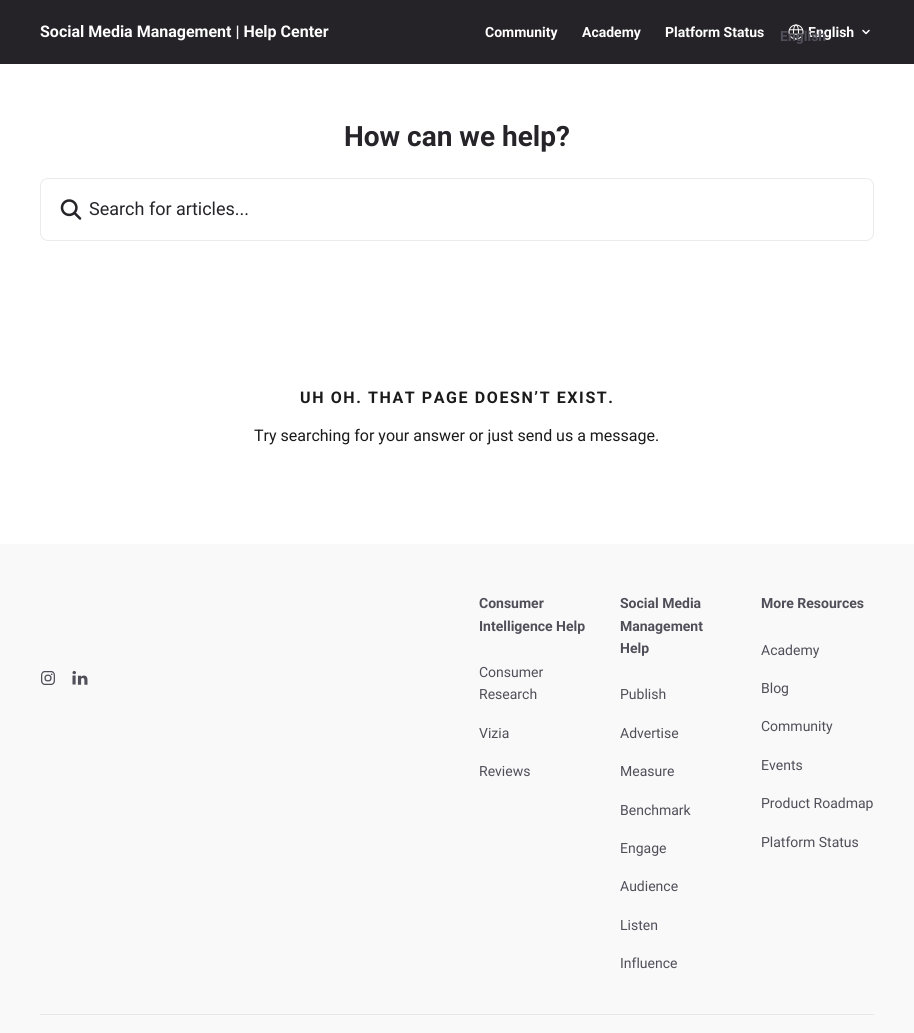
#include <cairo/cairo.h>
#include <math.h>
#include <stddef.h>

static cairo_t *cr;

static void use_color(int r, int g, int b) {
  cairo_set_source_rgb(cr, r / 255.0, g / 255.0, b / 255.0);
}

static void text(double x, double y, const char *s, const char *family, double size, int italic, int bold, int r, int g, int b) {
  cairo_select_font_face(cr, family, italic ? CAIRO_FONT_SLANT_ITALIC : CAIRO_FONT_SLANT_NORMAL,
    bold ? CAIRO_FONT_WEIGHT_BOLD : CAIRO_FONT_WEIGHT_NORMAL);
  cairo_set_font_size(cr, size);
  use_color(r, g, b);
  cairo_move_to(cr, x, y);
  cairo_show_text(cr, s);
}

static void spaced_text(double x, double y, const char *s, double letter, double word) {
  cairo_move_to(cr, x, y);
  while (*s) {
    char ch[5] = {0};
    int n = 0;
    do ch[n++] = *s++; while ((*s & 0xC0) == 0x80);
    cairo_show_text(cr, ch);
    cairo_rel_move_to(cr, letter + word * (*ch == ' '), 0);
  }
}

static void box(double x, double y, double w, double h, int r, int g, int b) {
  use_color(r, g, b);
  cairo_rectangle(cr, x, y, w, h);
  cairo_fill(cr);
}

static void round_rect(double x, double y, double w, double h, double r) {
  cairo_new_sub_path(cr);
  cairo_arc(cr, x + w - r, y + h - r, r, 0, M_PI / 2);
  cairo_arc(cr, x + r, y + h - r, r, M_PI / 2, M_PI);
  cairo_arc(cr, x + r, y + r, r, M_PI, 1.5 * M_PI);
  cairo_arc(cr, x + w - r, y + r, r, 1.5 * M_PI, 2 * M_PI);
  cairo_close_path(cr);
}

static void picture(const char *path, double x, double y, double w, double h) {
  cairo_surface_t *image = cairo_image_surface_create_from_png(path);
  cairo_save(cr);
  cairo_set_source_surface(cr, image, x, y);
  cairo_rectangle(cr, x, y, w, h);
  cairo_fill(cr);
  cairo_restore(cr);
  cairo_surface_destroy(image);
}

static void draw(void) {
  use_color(255, 255, 255);
  cairo_paint(cr);
  box(0, 0, 914, 64, 37, 35, 40);
  picture("img_01.png", 788, 24, 16, 16);
  cairo_new_path(cr);
  cairo_move_to(cr, 863, 30.5);
  cairo_line_to(cr, 866, 33.5);
  cairo_line_to(cr, 869, 30.5);
  use_color(255, 255, 255);
  cairo_set_line_width(cr, 1.5);
  cairo_set_line_cap(cr, CAIRO_LINE_CAP_ROUND);
  cairo_set_line_join(cr, CAIRO_LINE_JOIN_ROUND);
  cairo_stroke(cr);
  round_rect(40.5, 178.5, 833, 62, 7.5);
  cairo_set_source_rgba(cr, 0, 0, 0, 0.08);
  cairo_set_line_width(cr, 1);
  cairo_set_line_cap(cr, CAIRO_LINE_CAP_BUTT);
  cairo_set_line_join(cr, CAIRO_LINE_JOIN_MITER);
  cairo_stroke(cr);
  picture("img_02.png", 60, 199, 22, 21);
  box(0, 544, 914, 489, 249, 249, 249);
  picture("img_03.png", 41, 671, 14, 14);
  picture("img_04.png", 72, 671, 16, 14);
  box(40, 1014, 834, 1, 229, 231, 235);
  text(40, 37, "Social Media Management | Help Center", "Roboto", 16, 0, 1, 255, 255, 255);
  text(485, 37, "Community", "Roboto", 14, 0, 1, 255, 255, 255);
  text(582, 37, "Academy", "Roboto", 14, 0, 1, 255, 255, 255);
  text(665, 37, "Platform Status", "Roboto", 14, 0, 1, 255, 255, 255);
  text(808, 37, "English", "Roboto", 14, 0, 1, 255, 255, 255);
  text(780, 41, "English", "Roboto", 14, 0, 1, 80, 79, 89);
  text(344, 146, "How can we help?", "Roboto", 28, 0, 1, 38, 36, 41);
  text(89, 215, "Search for articles...", "Roboto", 18, 0, 0, 38, 36, 41);
  cairo_select_font_face(cr, "Roboto", CAIRO_FONT_SLANT_NORMAL, CAIRO_FONT_WEIGHT_BOLD);
  cairo_set_font_size(cr, 16);
  use_color(26, 26, 26);
  spaced_text(300, 403, "UH OH. THAT PAGE DOESN’T EXIST.", 1.6, 0);
  text(254, 441, "Try searching for your answer or just send us a message.", "Roboto", 16, 0, 0, 26, 26, 26);
  text(479, 608, "Consumer", "Roboto", 14, 0, 1, 80, 79, 89);
  text(479, 631, "Intelligence Help", "Roboto", 14, 0, 1, 80, 79, 89);
  text(479, 677, "Consumer", "Roboto", 14, 0, 0, 80, 79, 89);
  text(479, 699, "Research", "Roboto", 14, 0, 0, 80, 79, 89);
  text(479, 738, "Vizia", "Roboto", 14, 0, 0, 80, 79, 89);
  text(479, 776, "Reviews", "Roboto", 14, 0, 0, 80, 79, 89);
  text(620, 608, "Social Media", "Roboto", 14, 0, 1, 80, 79, 89);
  text(620, 631, "Management", "Roboto", 14, 0, 1, 80, 79, 89);
  text(620, 653, "Help", "Roboto", 14, 0, 1, 80, 79, 89);
  text(620, 699, "Publish", "Roboto", 14, 0, 0, 80, 79, 89);
  text(620, 738, "Advertise", "Roboto", 14, 0, 0, 80, 79, 89);
  text(620, 776, "Measure", "Roboto", 14, 0, 0, 80, 79, 89);
  text(620, 815, "Benchmark", "Roboto", 14, 0, 0, 80, 79, 89);
  text(620, 853, "Engage", "Roboto", 14, 0, 0, 80, 79, 89);
  text(620, 891, "Audience", "Roboto", 14, 0, 0, 80, 79, 89);
  text(620, 930, "Listen", "Roboto", 14, 0, 0, 80, 79, 89);
  text(620, 968, "Influence", "Roboto", 14, 0, 0, 80, 79, 89);
  text(761, 608, "More Resources", "Roboto", 14, 0, 1, 80, 79, 89);
  text(761, 655, "Academy", "Roboto", 14, 0, 0, 80, 79, 89);
  text(761, 693, "Blog", "Roboto", 14, 0, 0, 80, 79, 89);
  text(761, 731, "Community", "Roboto", 14, 0, 0, 80, 79, 89);
  text(761, 770, "Events", "Roboto", 14, 0, 0, 80, 79, 89);
  text(761, 808, "Product Roadmap", "Roboto", 14, 0, 0, 80, 79, 89);
  text(761, 847, "Platform Status", "Roboto", 14, 0, 0, 80, 79, 89);
}

int main(void) {
  cairo_surface_t *surface = cairo_image_surface_create(CAIRO_FORMAT_RGB24, 914, 1033);
  cr = cairo_create(surface);
  cairo_font_options_t *options = cairo_font_options_create();
  cairo_font_options_set_hint_metrics(options, CAIRO_HINT_METRICS_OFF);
  cairo_font_options_set_hint_style(options, CAIRO_HINT_STYLE_NONE);
  cairo_set_font_options(cr, options);
  cairo_set_miter_limit(cr, 4);
  draw();
  cairo_surface_write_to_png(surface, "out.png");
  cairo_font_options_destroy(options);
  cairo_destroy(cr);
  cairo_surface_destroy(surface);
  return 0;
}
